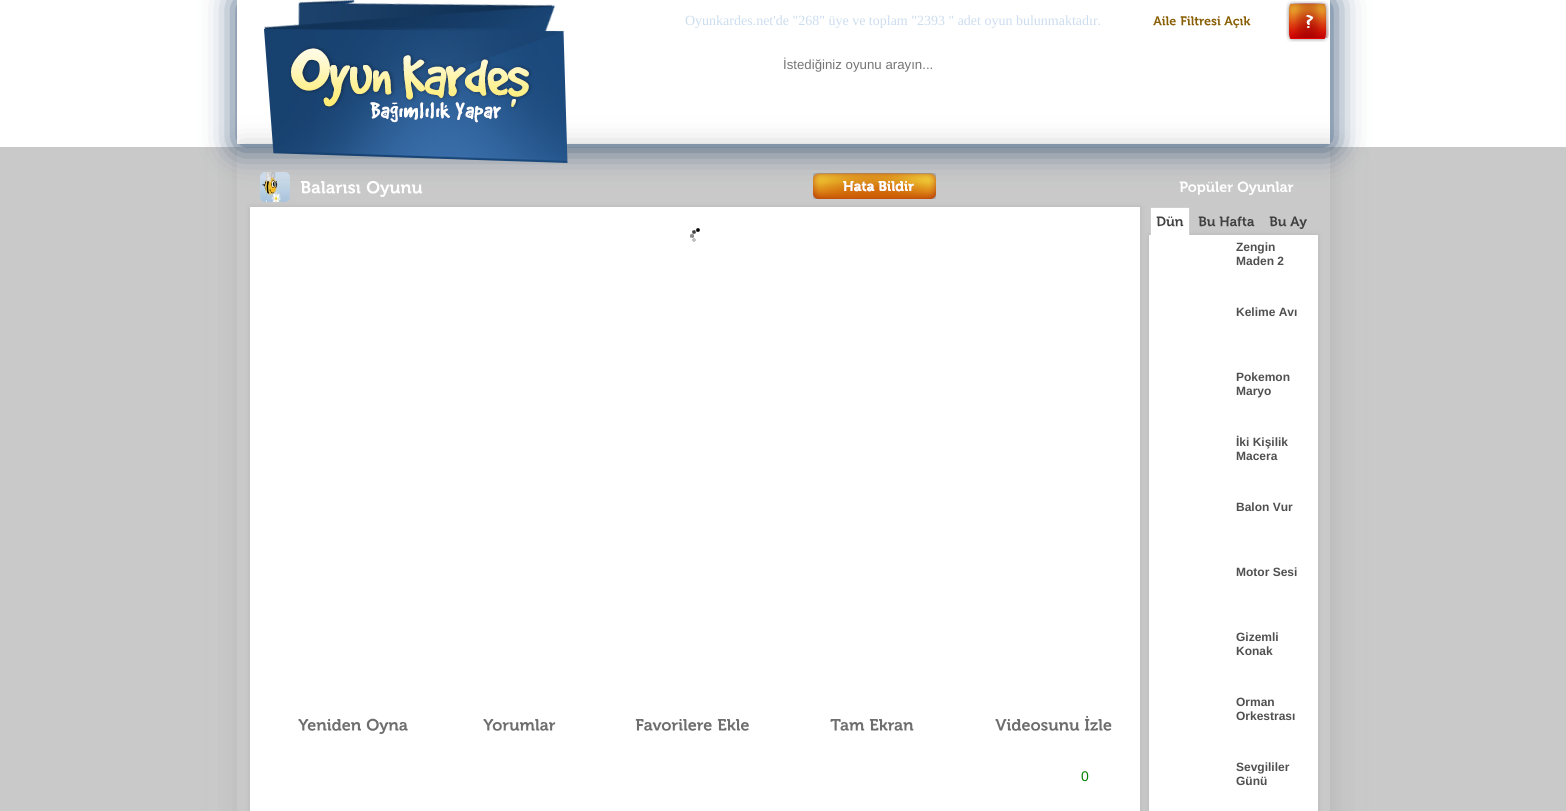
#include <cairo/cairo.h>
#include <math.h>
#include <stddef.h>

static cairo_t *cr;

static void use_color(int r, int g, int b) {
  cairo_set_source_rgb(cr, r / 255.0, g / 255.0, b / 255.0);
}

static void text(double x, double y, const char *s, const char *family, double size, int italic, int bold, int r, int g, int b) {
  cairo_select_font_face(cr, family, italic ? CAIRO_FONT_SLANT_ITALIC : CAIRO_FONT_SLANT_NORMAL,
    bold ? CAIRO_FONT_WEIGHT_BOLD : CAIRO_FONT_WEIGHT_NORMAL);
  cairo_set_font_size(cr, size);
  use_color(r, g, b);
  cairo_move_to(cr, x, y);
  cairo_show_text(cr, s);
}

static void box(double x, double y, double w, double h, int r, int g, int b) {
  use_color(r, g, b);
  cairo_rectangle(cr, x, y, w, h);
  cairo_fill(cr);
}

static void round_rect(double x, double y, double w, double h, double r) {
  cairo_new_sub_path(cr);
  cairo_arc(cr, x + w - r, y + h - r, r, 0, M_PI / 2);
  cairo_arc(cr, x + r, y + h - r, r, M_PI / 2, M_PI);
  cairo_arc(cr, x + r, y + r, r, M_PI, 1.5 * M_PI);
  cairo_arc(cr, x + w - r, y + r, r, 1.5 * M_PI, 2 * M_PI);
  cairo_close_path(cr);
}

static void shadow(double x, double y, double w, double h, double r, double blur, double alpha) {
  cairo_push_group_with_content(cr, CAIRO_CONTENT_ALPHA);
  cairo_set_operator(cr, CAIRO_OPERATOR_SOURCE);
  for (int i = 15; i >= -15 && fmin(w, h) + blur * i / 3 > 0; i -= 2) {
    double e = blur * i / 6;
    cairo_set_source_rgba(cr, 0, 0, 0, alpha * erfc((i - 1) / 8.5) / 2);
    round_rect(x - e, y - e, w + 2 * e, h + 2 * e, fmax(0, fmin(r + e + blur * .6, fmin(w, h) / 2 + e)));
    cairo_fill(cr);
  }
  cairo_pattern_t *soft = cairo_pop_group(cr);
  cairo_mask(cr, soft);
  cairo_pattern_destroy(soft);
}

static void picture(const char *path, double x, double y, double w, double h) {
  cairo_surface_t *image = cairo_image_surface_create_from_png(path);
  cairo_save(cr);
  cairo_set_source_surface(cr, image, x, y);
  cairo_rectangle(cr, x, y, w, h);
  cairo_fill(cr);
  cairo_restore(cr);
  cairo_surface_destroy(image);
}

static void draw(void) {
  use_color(255, 255, 255);
  cairo_paint(cr);
  box(0, 147, 1566, 664, 201, 201, 201);
  cairo_save(cr);
  cairo_set_fill_rule(cr, CAIRO_FILL_RULE_EVEN_ODD);
  cairo_new_path(cr);
  cairo_move_to(cr, 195, 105);
  cairo_line_to(cr, 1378, 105);
  cairo_line_to(cr, 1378, 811);
  cairo_line_to(cr, 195, 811);
  cairo_close_path(cr);
  cairo_move_to(cr, 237, 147);
  cairo_line_to(cr, 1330, 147);
  cairo_line_to(cr, 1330, 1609);
  cairo_line_to(cr, 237, 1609);
  cairo_close_path(cr);
  cairo_clip(cr);
  use_color(182, 182, 182);
  shadow(240, 150, 1093, 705, 0, 14.5, 1);
  cairo_restore(cr);
  use_color(182, 182, 182);
  shadow(250, 207, 890, 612, 0, 2.5, 1);
  picture("img_06.png", 260, 172, 30, 30);
  picture("img_09.png", 813, 173, 123, 26);
  cairo_save(cr);
  cairo_set_fill_rule(cr, CAIRO_FILL_RULE_EVEN_ODD);
  cairo_new_path(cr);
  cairo_move_to(cr, 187, 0);
  cairo_line_to(cr, 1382, 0);
  cairo_line_to(cr, 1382, 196);
  cairo_line_to(cr, 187, 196);
  cairo_close_path(cr);
  cairo_move_to(cr, 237, 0);
  cairo_line_to(cr, 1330, 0);
  cairo_line_to(cr, 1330, 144);
  cairo_line_to(cr, 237, 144);
  cairo_close_path(cr);
  cairo_clip(cr);
  use_color(34, 69, 107);
  shadow(238, 1, 1093, 144, 0, 16.5, 1);
  cairo_restore(cr);
  picture("img_01.png", 264, 0, 304, 163);
  picture("img_02.png", 1153, 16, 23, 10);
  picture("img_03.png", 1180, 16, 41, 10);
  picture("img_04.png", 1224, 16, 27, 12);
  picture("img_05.png", 1286, 1, 43, 41);
  picture("img_07.png", 300, 181, 61, 13);
  picture("img_08.png", 366, 181, 57, 16);
  box(250, 207, 890, 604, 255, 255, 255);
  picture("img_10.png", 690, 228, 10, 14);
  picture("img_11.png", 298, 719, 63, 12);
  picture("img_12.png", 366, 718, 42, 16);
  picture("img_13.png", 483, 719, 73, 12);
  picture("img_14.png", 635, 719, 77, 12);
  picture("img_15.png", 717, 719, 32, 12);
  picture("img_16.png", 830, 719, 35, 12);
  picture("img_17.png", 869, 719, 45, 12);
  picture("img_18.png", 995, 719, 85, 12);
  picture("img_19.png", 1084, 716, 28, 15);
  picture("img_20.png", 1179, 181, 54, 14);
  picture("img_21.png", 1237, 181, 57, 14);
  use_color(182, 182, 182);
  shadow(1149, 235, 169, 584, 0, 2.5, 1);
  box(1151, 208, 38, 27, 255, 255, 255);
  box(1150, 207, 40, 1, 207, 207, 207);
  box(1189, 207, 1, 28, 207, 207, 207);
  box(1150, 207, 1, 28, 207, 207, 207);
  picture("img_22.png", 1156, 216, 28, 11);
  picture("img_23.png", 1198, 216, 18, 11);
  picture("img_24.png", 1219, 216, 36, 11);
  picture("img_23.png", 1269, 216, 18, 11);
  picture("img_25.png", 1290, 216, 17, 13);
  box(1149, 235, 169, 576, 255, 255, 255);
  text(685, 25, "Oyunkardes.net'de \"268\" üye ve toplam \"2393 \" adet oyun bulunmaktadır.", "Liberation Serif", 14, 0, 0, 204, 221, 239);
  text(783, 69, "İstediğiniz oyunu arayın...", "Liberation Sans", 13.25, 0, 0, 117, 117, 117);
  text(1081, 781, "0", "Liberation Sans", 14, 0, 0, 0, 128, 0);
  text(1236, 251, "Zengin", "Liberation Sans", 12, 0, 1, 80, 80, 80);
  text(1236, 265, "Maden 2", "Liberation Sans", 12, 0, 1, 80, 80, 80);
  text(1236, 316, "Kelime Avı", "Liberation Sans", 12, 0, 1, 80, 80, 80);
  text(1236, 381, "Pokemon", "Liberation Sans", 12, 0, 1, 80, 80, 80);
  text(1236, 395, "Maryo", "Liberation Sans", 12, 0, 1, 80, 80, 80);
  text(1236, 446, "İki Kişilik", "Liberation Sans", 12, 0, 1, 80, 80, 80);
  text(1236, 460, "Macera", "Liberation Sans", 12, 0, 1, 80, 80, 80);
  text(1236, 511, "Balon Vur", "Liberation Sans", 12, 0, 1, 80, 80, 80);
  text(1236, 576, "Motor Sesi", "Liberation Sans", 12, 0, 1, 80, 80, 80);
  text(1236, 641, "Gizemli", "Liberation Sans", 12, 0, 1, 80, 80, 80);
  text(1236, 655, "Konak", "Liberation Sans", 12, 0, 1, 80, 80, 80);
  text(1236, 706, "Orman", "Liberation Sans", 12, 0, 1, 80, 80, 80);
  text(1236, 720, "Orkestrası", "Liberation Sans", 12, 0, 1, 80, 80, 80);
  text(1236, 771, "Sevgililer", "Liberation Sans", 12, 0, 1, 80, 80, 80);
  text(1236, 785, "Günü", "Liberation Sans", 12, 0, 1, 80, 80, 80);
}

int main(void) {
  cairo_surface_t *surface = cairo_image_surface_create(CAIRO_FORMAT_RGB24, 1566, 811);
  cr = cairo_create(surface);
  cairo_font_options_t *options = cairo_font_options_create();
  cairo_font_options_set_hint_metrics(options, CAIRO_HINT_METRICS_OFF);
  cairo_font_options_set_hint_style(options, CAIRO_HINT_STYLE_NONE);
  cairo_set_font_options(cr, options);
  cairo_set_miter_limit(cr, 4);
  draw();
  cairo_surface_write_to_png(surface, "out.png");
  cairo_font_options_destroy(options);
  cairo_destroy(cr);
  cairo_surface_destroy(surface);
  return 0;
}
